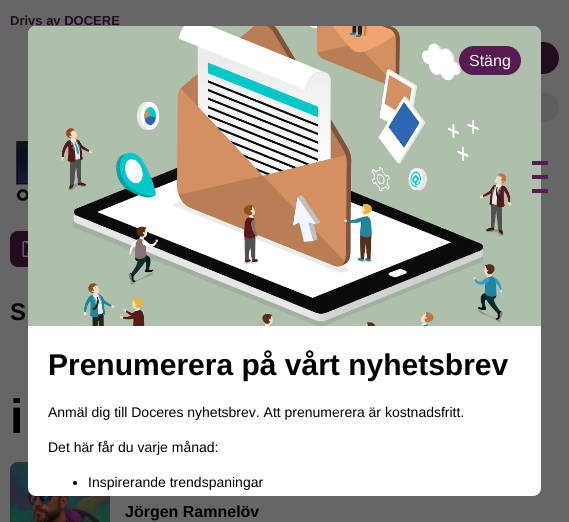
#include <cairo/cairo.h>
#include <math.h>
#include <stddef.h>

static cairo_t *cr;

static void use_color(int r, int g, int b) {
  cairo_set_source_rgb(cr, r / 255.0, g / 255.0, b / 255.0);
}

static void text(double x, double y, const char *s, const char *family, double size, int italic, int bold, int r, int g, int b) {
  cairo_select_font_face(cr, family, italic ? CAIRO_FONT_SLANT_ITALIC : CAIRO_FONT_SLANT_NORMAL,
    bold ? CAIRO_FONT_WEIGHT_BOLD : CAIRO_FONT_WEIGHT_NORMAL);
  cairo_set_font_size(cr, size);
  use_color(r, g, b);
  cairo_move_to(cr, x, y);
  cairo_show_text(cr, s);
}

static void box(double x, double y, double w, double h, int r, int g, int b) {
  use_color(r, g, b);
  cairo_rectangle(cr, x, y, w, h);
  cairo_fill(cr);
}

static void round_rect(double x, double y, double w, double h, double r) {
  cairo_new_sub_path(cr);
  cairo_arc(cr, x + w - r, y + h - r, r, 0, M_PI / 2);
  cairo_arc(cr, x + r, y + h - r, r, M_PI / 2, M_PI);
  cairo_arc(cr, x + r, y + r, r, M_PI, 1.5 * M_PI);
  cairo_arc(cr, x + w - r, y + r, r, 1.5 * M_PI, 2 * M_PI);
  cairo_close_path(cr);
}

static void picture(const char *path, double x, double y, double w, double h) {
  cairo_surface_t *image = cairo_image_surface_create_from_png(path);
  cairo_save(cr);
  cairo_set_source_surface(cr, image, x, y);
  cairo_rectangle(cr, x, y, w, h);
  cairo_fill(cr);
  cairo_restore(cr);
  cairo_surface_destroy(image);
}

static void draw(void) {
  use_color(102, 102, 102);
  cairo_paint(cr);
  use_color(35, 11, 32);
  round_rect(491, 42, 68, 32, 16);
  cairo_fill(cr);
  use_color(95, 93, 95);
  round_rect(471, 93, 88, 29, 14.5);
  cairo_fill(cr);
  picture("img_01.png", 16, 141, 12, 60);
  use_color(35, 11, 32);
  round_rect(10, 231, 36, 36, 8);
  cairo_fill(cr);
  picture("img_03.png", 10, 462, 100, 60);
  use_color(255, 255, 255);
  round_rect(28, 26, 513, 470, 8);
  cairo_fill(cr);
  picture("img_04.png", 28, 26, 513, 300);
  box(532, 161, 16, 4, 87, 27, 81);
  box(532, 175, 16, 4, 87, 27, 81);
  box(532, 189, 16, 4, 87, 27, 81);
  picture("img_02.png", 22, 241, 6, 16);
  round_rect(459, 46, 62, 29, 14.5);
  cairo_fill(cr);
  use_color(0, 0, 0);
  cairo_arc(cr, 75, 483, 2, 0, 2 * M_PI);
  cairo_fill(cr);
  text(10, 25, "Drivs av DOCERE", "Liberation Sans", 13, 0, 1, 35, 11, 32);
  text(10, 320, "S", "Liberation Sans", 24, 0, 1, 0, 0, 0);
  text(10, 433, "i", "Liberation Sans", 48, 0, 1, 0, 0, 0);
  text(125, 517, "Jörgen Ramnelöv", "Liberation Sans", 16, 0, 1, 0, 0, 0);
  text(469, 66, "Stäng", "Liberation Sans", 16, 0, 0, 255, 255, 255);
  text(48, 375, "Prenumerera på vårt nyhetsbrev", "Liberation Sans", 30, 0, 1, 0, 0, 0);
  text(48, 417, "Anmäl dig till Doceres nyhetsbrev. Att prenumerera är kostnadsfritt.", "Liberation Sans", 14, 0, 0, 0, 0, 0);
  text(48, 452, "Det här får du varje månad:", "Liberation Sans", 14, 0, 0, 0, 0, 0);
  text(88, 487, "Inspirerande trendspaningar", "Liberation Sans", 14, 0, 0, 0, 0, 0);
}

int main(void) {
  cairo_surface_t *surface = cairo_image_surface_create(CAIRO_FORMAT_RGB24, 569, 522);
  cr = cairo_create(surface);
  cairo_font_options_t *options = cairo_font_options_create();
  cairo_font_options_set_hint_metrics(options, CAIRO_HINT_METRICS_OFF);
  cairo_font_options_set_hint_style(options, CAIRO_HINT_STYLE_NONE);
  cairo_set_font_options(cr, options);
  cairo_set_miter_limit(cr, 4);
  draw();
  cairo_surface_write_to_png(surface, "out.png");
  cairo_font_options_destroy(options);
  cairo_destroy(cr);
  cairo_surface_destroy(surface);
  return 0;
}
